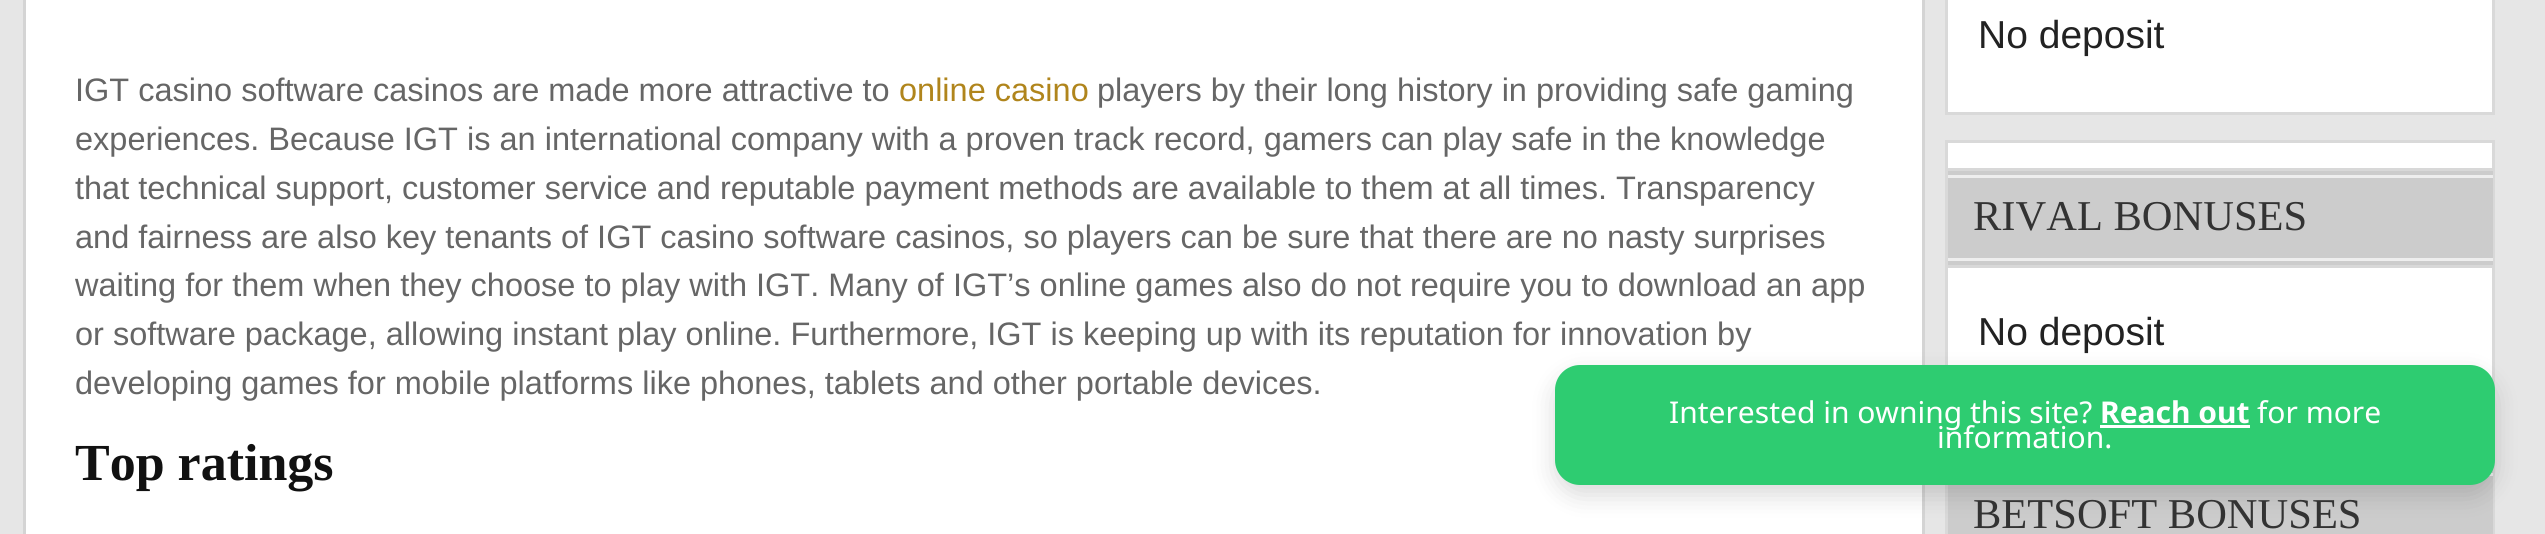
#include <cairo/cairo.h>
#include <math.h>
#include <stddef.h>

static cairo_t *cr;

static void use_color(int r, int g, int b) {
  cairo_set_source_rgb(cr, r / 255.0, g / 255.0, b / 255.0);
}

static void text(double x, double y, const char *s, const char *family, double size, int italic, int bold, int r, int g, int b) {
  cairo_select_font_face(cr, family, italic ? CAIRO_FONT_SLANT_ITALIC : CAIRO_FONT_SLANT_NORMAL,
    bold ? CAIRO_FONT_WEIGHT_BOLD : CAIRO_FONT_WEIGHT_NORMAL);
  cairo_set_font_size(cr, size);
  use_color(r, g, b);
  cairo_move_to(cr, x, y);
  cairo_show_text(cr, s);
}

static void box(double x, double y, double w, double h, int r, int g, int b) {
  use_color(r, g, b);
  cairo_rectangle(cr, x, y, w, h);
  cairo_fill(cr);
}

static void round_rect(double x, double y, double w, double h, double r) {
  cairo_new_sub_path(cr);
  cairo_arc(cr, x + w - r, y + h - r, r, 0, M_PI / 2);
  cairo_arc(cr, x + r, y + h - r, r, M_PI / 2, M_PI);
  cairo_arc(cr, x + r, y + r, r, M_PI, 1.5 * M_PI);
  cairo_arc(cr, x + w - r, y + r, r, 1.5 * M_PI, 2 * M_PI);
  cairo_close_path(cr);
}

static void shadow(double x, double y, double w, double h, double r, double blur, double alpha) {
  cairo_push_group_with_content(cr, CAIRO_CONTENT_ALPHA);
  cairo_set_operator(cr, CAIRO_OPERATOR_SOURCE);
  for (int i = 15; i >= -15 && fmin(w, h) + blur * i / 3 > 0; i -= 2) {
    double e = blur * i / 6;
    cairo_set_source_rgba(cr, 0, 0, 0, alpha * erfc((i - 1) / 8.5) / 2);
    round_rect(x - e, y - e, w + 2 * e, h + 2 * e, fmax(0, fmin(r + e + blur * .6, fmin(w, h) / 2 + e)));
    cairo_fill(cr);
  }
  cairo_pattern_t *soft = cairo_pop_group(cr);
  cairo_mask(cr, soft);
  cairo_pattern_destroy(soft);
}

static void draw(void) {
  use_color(230, 230, 230);
  cairo_paint(cr);
  use_color(255, 255, 255);
  cairo_rectangle(cr, 24.5, -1.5, 1899, 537);
  cairo_fill_preserve(cr);
  use_color(212, 212, 212);
  cairo_set_line_width(cr, 3);
  cairo_stroke(cr);
  use_color(255, 255, 255);
  cairo_rectangle(cr, 1946.5, -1.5, 547, 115);
  cairo_fill_preserve(cr);
  use_color(217, 217, 217);
  cairo_stroke(cr);
  box(1948, 143, 544, 235, 255, 255, 255);
  cairo_rectangle(cr, 1946.5, 141.5, 547, 270);
  use_color(217, 217, 217);
  cairo_stroke(cr);
  box(1948, 171, 545, 94, 204, 204, 204);
  box(1948, 168, 545, 3, 216, 216, 216);
  box(1948, 265, 545, 3, 216, 216, 216);
  box(1948, 175, 545, 3, 238, 238, 238);
  box(1948, 258, 545, 3, 238, 238, 238);
  cairo_rectangle(cr, 1946.5, 439.5, 547, 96);
  use_color(217, 217, 217);
  cairo_stroke(cr);
  box(1948, 469, 545, 65, 204, 204, 204);
  box(2489, 473, 4, 3, 238, 238, 238);
  use_color(0, 0, 0);
  shadow(1555, 375, 940, 120, 25, 12.5, 0.15);
  use_color(46, 204, 113);
  round_rect(1555, 365, 940, 120, 25);
  cairo_fill(cr);
  box(2100, 425, 150, 3, 255, 255, 255);
  text(75, 101, "IGT casino software casinos are made more attractive to", "Liberation Sans", 32.5, 0, 0, 102, 102, 102);
  text(899, 101, "online casino", "Liberation Sans", 32.5, 0, 0, 176, 133, 28);
  text(1097, 101, "players by their long history in providing safe gaming", "Liberation Sans", 32.5, 0, 0, 102, 102, 102);
  text(75, 150, "experiences. Because IGT is an international company with a proven track record, gamers can play safe in the knowledge", "Liberation Sans", 32.5, 0, 0, 102, 102, 102);
  text(75, 199, "that technical support, customer service and reputable payment methods are available to them at all times. Transparency", "Liberation Sans", 32.5, 0, 0, 102, 102, 102);
  text(75, 248, "and fairness are also key tenants of IGT casino software casinos, so players can be sure that there are no nasty surprises", "Liberation Sans", 32.5, 0, 0, 102, 102, 102);
  text(75, 296, "waiting for them when they choose to play with IGT. Many of IGT’s online games also do not require you to download an app", "Liberation Sans", 32.5, 0, 0, 102, 102, 102);
  text(75, 345, "or software package, allowing instant play online. Furthermore, IGT is keeping up with its reputation for innovation by", "Liberation Sans", 32.5, 0, 0, 102, 102, 102);
  text(75, 394, "developing games for mobile platforms like phones, tablets and other portable devices.", "Liberation Sans", 32.5, 0, 0, 102, 102, 102);
  text(75, 480, "Top ratings", "Liberation Serif", 52, 0, 1, 17, 17, 17);
  text(1978, 48, "No deposit", "Liberation Sans", 39, 0, 0, 34, 34, 34);
  text(1973, 230, "RIVAL BONUSES", "Liberation Serif", 42.5, 0, 0, 51, 51, 51);
  text(1978, 345, "No deposit", "Liberation Sans", 39, 0, 0, 34, 34, 34);
  text(1973, 528, "BETSOFT BONUSES", "Liberation Serif", 42.5, 0, 0, 51, 51, 51);
  text(1669, 423, "Interested in owning this site?", "Noto Sans", 30, 0, 0, 255, 255, 255);
  text(2100, 423, "Reach out", "Noto Sans", 30, 0, 1, 255, 255, 255);
  text(2257, 423, "for more", "Noto Sans", 30, 0, 0, 255, 255, 255);
  text(1937, 448, "information.", "Noto Sans", 30, 0, 0, 255, 255, 255);
}

int main(void) {
  cairo_surface_t *surface = cairo_image_surface_create(CAIRO_FORMAT_RGB24, 2545, 534);
  cr = cairo_create(surface);
  cairo_font_options_t *options = cairo_font_options_create();
  cairo_font_options_set_hint_metrics(options, CAIRO_HINT_METRICS_OFF);
  cairo_font_options_set_hint_style(options, CAIRO_HINT_STYLE_NONE);
  cairo_set_font_options(cr, options);
  cairo_set_miter_limit(cr, 4);
  draw();
  cairo_surface_write_to_png(surface, "out.png");
  cairo_font_options_destroy(options);
  cairo_destroy(cr);
  cairo_surface_destroy(surface);
  return 0;
}
